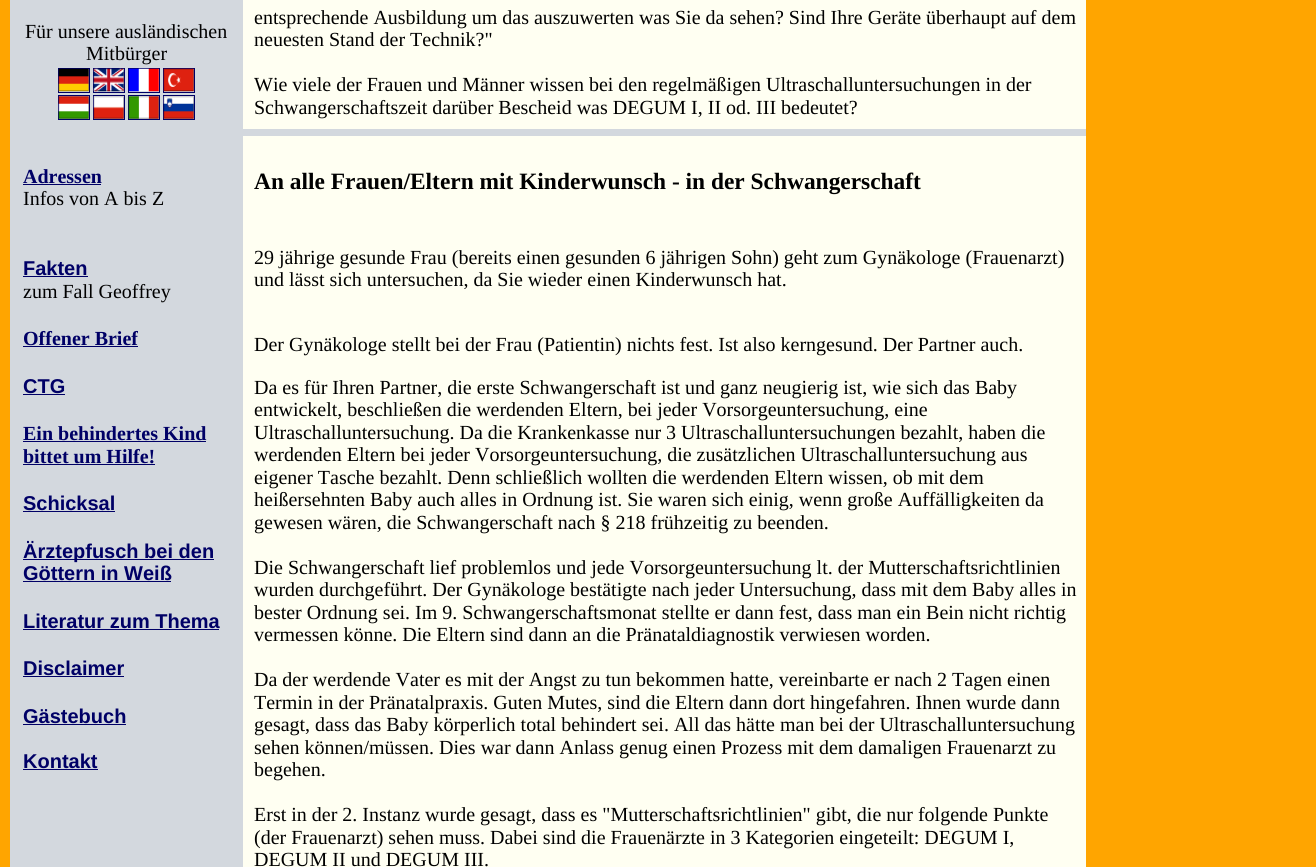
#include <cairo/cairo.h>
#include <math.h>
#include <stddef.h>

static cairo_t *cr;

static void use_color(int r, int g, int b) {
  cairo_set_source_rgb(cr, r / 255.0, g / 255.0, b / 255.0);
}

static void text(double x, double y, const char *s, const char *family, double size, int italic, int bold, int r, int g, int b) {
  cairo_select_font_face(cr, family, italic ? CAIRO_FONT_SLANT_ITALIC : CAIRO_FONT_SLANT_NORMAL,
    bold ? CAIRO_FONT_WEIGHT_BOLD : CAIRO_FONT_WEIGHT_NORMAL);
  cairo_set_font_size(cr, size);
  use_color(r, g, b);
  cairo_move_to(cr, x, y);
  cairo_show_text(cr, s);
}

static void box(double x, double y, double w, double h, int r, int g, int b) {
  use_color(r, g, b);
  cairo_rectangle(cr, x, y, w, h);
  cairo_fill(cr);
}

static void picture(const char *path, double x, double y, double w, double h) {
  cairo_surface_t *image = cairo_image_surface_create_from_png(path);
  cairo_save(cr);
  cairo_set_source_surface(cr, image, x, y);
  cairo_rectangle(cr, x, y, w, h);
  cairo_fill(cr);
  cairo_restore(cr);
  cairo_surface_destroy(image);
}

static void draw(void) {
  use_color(255, 165, 0);
  cairo_paint(cr);
  box(10, 0, 233, 129, 211, 216, 222);
  box(243, 0, 843, 129, 255, 255, 242);
  cairo_rectangle(cr, 58.5, 68.5, 31, 24);
  use_color(0, 0, 102);
  cairo_set_line_width(cr, 1);
  cairo_stroke(cr);
  picture("img_01.png", 58, 68, 31, 24);
  cairo_rectangle(cr, 93.5, 68.5, 31, 24);
  cairo_stroke(cr);
  picture("img_02.png", 93, 68, 31, 24);
  cairo_rectangle(cr, 128.5, 68.5, 31, 24);
  cairo_stroke(cr);
  picture("img_03.png", 128, 68, 31, 24);
  cairo_rectangle(cr, 163.5, 68.5, 31, 24);
  cairo_stroke(cr);
  picture("img_04.png", 163, 68, 31, 24);
  cairo_rectangle(cr, 58.5, 95.5, 31, 24);
  cairo_stroke(cr);
  picture("img_05.png", 58, 96, 31, 23);
  cairo_rectangle(cr, 93.5, 95.5, 31, 24);
  cairo_stroke(cr);
  picture("img_06.png", 93, 96, 31, 23);
  cairo_rectangle(cr, 128.5, 95.5, 31, 24);
  cairo_stroke(cr);
  picture("img_07.png", 128, 96, 31, 23);
  cairo_rectangle(cr, 163.5, 95.5, 31, 24);
  cairo_stroke(cr);
  picture("img_08.png", 163, 96, 31, 23);
  box(10, 129, 1076, 7, 211, 216, 222);
  box(10, 136, 233, 731, 211, 216, 222);
  box(23, 184, 78, 1, 0, 0, 102);
  box(23, 276, 65, 1, 0, 0, 102);
  box(23, 346, 115, 1, 0, 0, 102);
  box(23, 394, 42, 1, 0, 0, 102);
  box(23, 441, 183, 1, 0, 0, 102);
  box(23, 464, 132, 1, 0, 0, 102);
  box(23, 511, 92, 1, 0, 0, 102);
  box(23, 559, 191, 1, 0, 0, 102);
  box(23, 581, 148, 1, 0, 0, 102);
  box(23, 629, 196, 1, 0, 0, 102);
  box(23, 676, 101, 1, 0, 0, 102);
  box(23, 724, 103, 1, 0, 0, 102);
  box(23, 769, 75, 1, 0, 0, 102);
  box(243, 136, 843, 731, 255, 255, 242);
  text(25, 38, "Für unsere ausländischen", "Liberation Serif", 20, 0, 0, 0, 0, 0);
  text(86, 60, "Mitbürger", "Liberation Serif", 20, 0, 0, 0, 0, 0);
  text(254, 24, "entsprechende Ausbildung um das auszuwerten was Sie da sehen? Sind Ihre Geräte überhaupt auf dem", "Liberation Serif", 20, 0, 0, 0, 0, 0);
  text(254, 46, "neuesten Stand der Technik?\"", "Liberation Serif", 20, 0, 0, 0, 0, 0);
  text(254, 91, "Wie viele der Frauen und Männer wissen bei den regelmäßigen Ultraschalluntersuchungen in der", "Liberation Serif", 20, 0, 0, 0, 0, 0);
  text(254, 114, "Schwangerschaftszeit darüber Bescheid was DEGUM I, II od. III bedeutet?", "Liberation Serif", 20, 0, 0, 0, 0, 0);
  text(23, 183, "Adressen", "Liberation Serif", 20, 0, 1, 0, 0, 102);
  text(23, 205, "Infos von A bis Z", "Liberation Serif", 20, 0, 0, 0, 0, 0);
  text(23, 275, "Fakten", "Liberation Sans", 20, 0, 1, 0, 0, 102);
  text(23, 298, "zum Fall Geoffrey", "Liberation Serif", 20, 0, 0, 0, 0, 0);
  text(23, 345, "Offener Brief", "Liberation Serif", 20, 0, 1, 0, 0, 102);
  text(23, 393, "CTG", "Liberation Sans", 20, 0, 1, 0, 0, 102);
  text(23, 440, "Ein behindertes Kind", "Liberation Serif", 20, 0, 1, 0, 0, 102);
  text(23, 463, "bittet um Hilfe!", "Liberation Serif", 20, 0, 1, 0, 0, 102);
  text(23, 510, "Schicksal", "Liberation Sans", 20, 0, 1, 0, 0, 102);
  text(23, 558, "Ärztepfusch bei den", "Liberation Sans", 20, 0, 1, 0, 0, 102);
  text(23, 580, "Göttern in Weiß", "Liberation Sans", 20, 0, 1, 0, 0, 102);
  text(23, 628, "Literatur zum Thema", "Liberation Sans", 20, 0, 1, 0, 0, 102);
  text(23, 675, "Disclaimer", "Liberation Sans", 20, 0, 1, 0, 0, 102);
  text(23, 723, "Gästebuch", "Liberation Sans", 20, 0, 1, 0, 0, 102);
  text(23, 768, "Kontakt", "Liberation Sans", 20, 0, 1, 0, 0, 102);
  text(254, 189, "An alle Frauen/Eltern mit Kinderwunsch - in der Schwangerschaft", "Liberation Serif", 23.4, 0, 1, 0, 0, 0);
  text(254, 264, "29 jährige gesunde Frau (bereits einen gesunden 6 jährigen Sohn) geht zum Gynäkologe (Frauenarzt)", "Liberation Serif", 20, 0, 0, 0, 0, 0);
  text(254, 286, "und lässt sich untersuchen, da Sie wieder einen Kinderwunsch hat.", "Liberation Serif", 20, 0, 0, 0, 0, 0);
  text(254, 351, "Der Gynäkologe stellt bei der Frau (Patientin) nichts fest. Ist also kerngesund. Der Partner auch.", "Liberation Serif", 20, 0, 0, 0, 0, 0);
  text(254, 394, "Da es für Ihren Partner, die erste Schwangerschaft ist und ganz neugierig ist, wie sich das Baby", "Liberation Serif", 20, 0, 0, 0, 0, 0);
  text(254, 416, "entwickelt, beschließen die werdenden Eltern, bei jeder Vorsorgeuntersuchung, eine", "Liberation Serif", 20, 0, 0, 0, 0, 0);
  text(254, 439, "Ultraschalluntersuchung. Da die Krankenkasse nur 3 Ultraschalluntersuchungen bezahlt, haben die", "Liberation Serif", 20, 0, 0, 0, 0, 0);
  text(254, 461, "werdenden Eltern bei jeder Vorsorgeuntersuchung, die zusätzlichen Ultraschalluntersuchung aus", "Liberation Serif", 20, 0, 0, 0, 0, 0);
  text(254, 484, "eigener Tasche bezahlt. Denn schließlich wollten die werdenden Eltern wissen, ob mit dem", "Liberation Serif", 20, 0, 0, 0, 0, 0);
  text(254, 506, "heißersehnten Baby auch alles in Ordnung ist. Sie waren sich einig, wenn große Auffälligkeiten da", "Liberation Serif", 20, 0, 0, 0, 0, 0);
  text(254, 529, "gewesen wären, die Schwangerschaft nach § 218 frühzeitig zu beenden.", "Liberation Serif", 20, 0, 0, 0, 0, 0);
  text(254, 574, "Die Schwangerschaft lief problemlos und jede Vorsorgeuntersuchung lt. der Mutterschaftsrichtlinien", "Liberation Serif", 20, 0, 0, 0, 0, 0);
  text(254, 596, "wurden durchgeführt. Der Gynäkologe bestätigte nach jeder Untersuchung, dass mit dem Baby alles in", "Liberation Serif", 20, 0, 0, 0, 0, 0);
  text(254, 619, "bester Ordnung sei. Im 9. Schwangerschaftsmonat stellte er dann fest, dass man ein Bein nicht richtig", "Liberation Serif", 20, 0, 0, 0, 0, 0);
  text(254, 641, "vermessen könne. Die Eltern sind dann an die Pränataldiagnostik verwiesen worden.", "Liberation Serif", 20, 0, 0, 0, 0, 0);
  text(254, 686, "Da der werdende Vater es mit der Angst zu tun bekommen hatte, vereinbarte er nach 2 Tagen einen", "Liberation Serif", 20, 0, 0, 0, 0, 0);
  text(254, 709, "Termin in der Pränatalpraxis. Guten Mutes, sind die Eltern dann dort hingefahren. Ihnen wurde dann", "Liberation Serif", 20, 0, 0, 0, 0, 0);
  text(254, 731, "gesagt, dass das Baby körperlich total behindert sei. All das hätte man bei der Ultraschalluntersuchung", "Liberation Serif", 20, 0, 0, 0, 0, 0);
  text(254, 754, "sehen können/müssen. Dies war dann Anlass genug einen Prozess mit dem damaligen Frauenarzt zu", "Liberation Serif", 20, 0, 0, 0, 0, 0);
  text(254, 776, "begehen.", "Liberation Serif", 20, 0, 0, 0, 0, 0);
  text(254, 821, "Erst in der 2. Instanz wurde gesagt, dass es \"Mutterschaftsrichtlinien\" gibt, die nur folgende Punkte", "Liberation Serif", 20, 0, 0, 0, 0, 0);
  text(254, 844, "(der Frauenarzt) sehen muss. Dabei sind die Frauenärzte in 3 Kategorien eingeteilt: DEGUM I,", "Liberation Serif", 20, 0, 0, 0, 0, 0);
  text(254, 866, "DEGUM II und DEGUM III.", "Liberation Serif", 20, 0, 0, 0, 0, 0);
}

int main(void) {
  cairo_surface_t *surface = cairo_image_surface_create(CAIRO_FORMAT_RGB24, 1316, 867);
  cr = cairo_create(surface);
  cairo_font_options_t *options = cairo_font_options_create();
  cairo_font_options_set_hint_metrics(options, CAIRO_HINT_METRICS_OFF);
  cairo_font_options_set_hint_style(options, CAIRO_HINT_STYLE_NONE);
  cairo_set_font_options(cr, options);
  cairo_set_miter_limit(cr, 4);
  draw();
  cairo_surface_write_to_png(surface, "out.png");
  cairo_font_options_destroy(options);
  cairo_destroy(cr);
  cairo_surface_destroy(surface);
  return 0;
}
